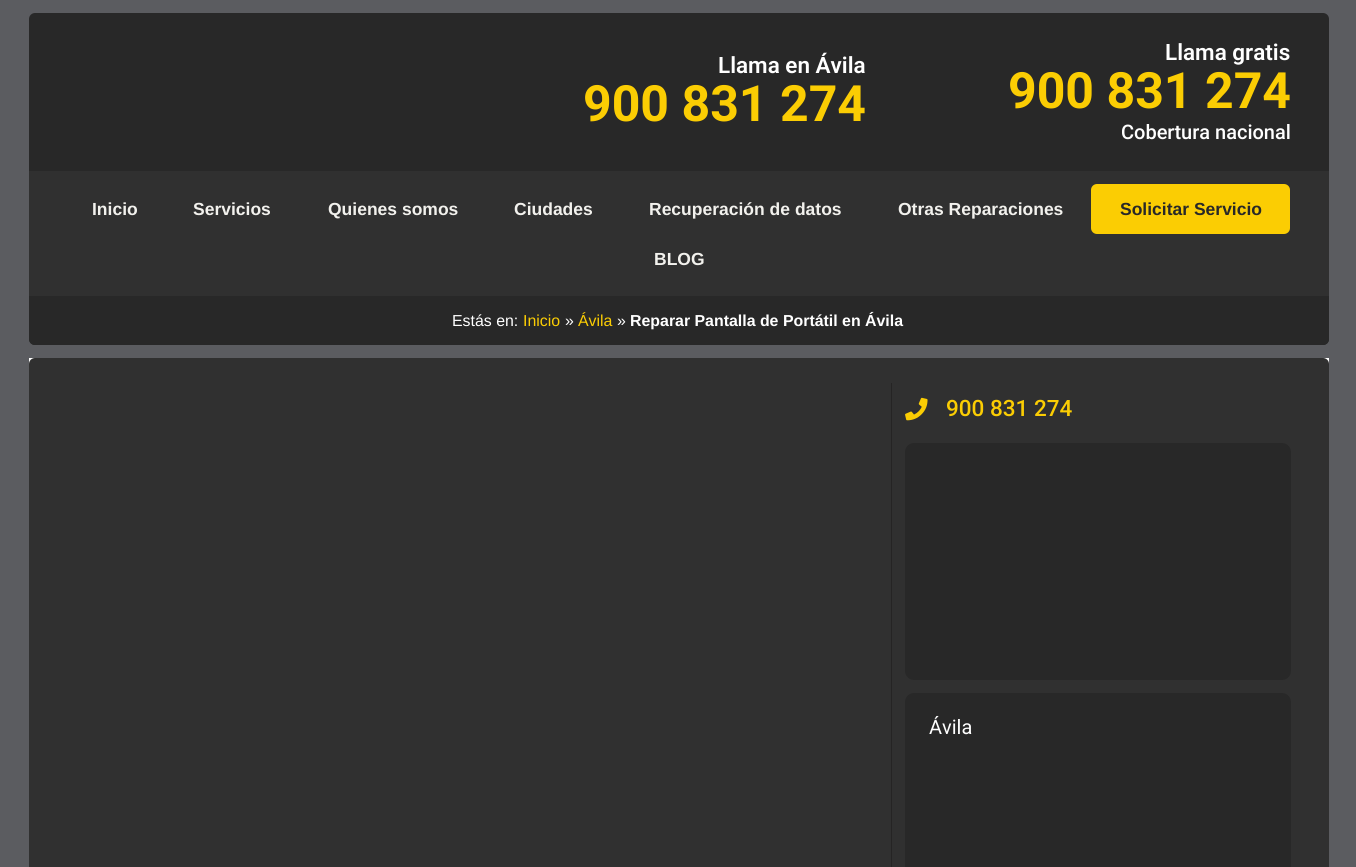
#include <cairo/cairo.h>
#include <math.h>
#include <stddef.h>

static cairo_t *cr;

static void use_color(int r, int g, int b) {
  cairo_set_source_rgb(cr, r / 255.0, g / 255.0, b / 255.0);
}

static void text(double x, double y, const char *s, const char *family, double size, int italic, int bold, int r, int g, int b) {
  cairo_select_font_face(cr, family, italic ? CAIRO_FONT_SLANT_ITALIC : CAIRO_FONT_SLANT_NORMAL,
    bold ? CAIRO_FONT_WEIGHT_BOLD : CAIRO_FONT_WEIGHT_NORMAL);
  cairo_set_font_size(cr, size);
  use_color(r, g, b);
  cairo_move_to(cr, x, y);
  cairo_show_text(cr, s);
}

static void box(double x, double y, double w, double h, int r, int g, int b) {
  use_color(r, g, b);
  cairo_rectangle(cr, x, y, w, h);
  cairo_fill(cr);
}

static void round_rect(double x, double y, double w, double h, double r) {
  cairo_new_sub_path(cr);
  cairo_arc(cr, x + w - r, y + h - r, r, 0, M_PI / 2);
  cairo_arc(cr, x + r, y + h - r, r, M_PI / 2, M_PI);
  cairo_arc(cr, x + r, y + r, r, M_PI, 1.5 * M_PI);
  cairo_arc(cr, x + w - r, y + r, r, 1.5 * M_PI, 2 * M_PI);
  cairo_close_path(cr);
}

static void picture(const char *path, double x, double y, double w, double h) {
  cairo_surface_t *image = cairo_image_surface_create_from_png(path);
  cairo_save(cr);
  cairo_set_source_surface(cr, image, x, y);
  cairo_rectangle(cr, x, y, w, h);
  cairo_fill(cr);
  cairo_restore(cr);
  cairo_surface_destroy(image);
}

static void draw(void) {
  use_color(91, 92, 96);
  cairo_paint(cr);
  use_color(40, 40, 40);
  round_rect(29, 13, 1300, 332, 6);
  cairo_fill(cr);
  box(29, 171, 1300, 125, 48, 48, 48);
  use_color(251, 205, 3);
  round_rect(1091, 184, 199, 50, 6);
  cairo_fill(cr);
  use_color(40, 40, 40);
  cairo_new_path(cr);
  cairo_move_to(cr, 29, 296);
  cairo_line_to(cr, 1329, 296);
  cairo_line_to(cr, 1329, 339);
  cairo_curve_to(cr, 1329, 342.5, 1326.5, 345, 1323, 345);
  cairo_line_to(cr, 35, 345);
  cairo_curve_to(cr, 31.5, 345, 29, 342.5, 29, 339);
  cairo_close_path(cr);
  cairo_fill(cr);
  box(29, 358, 1300, 6, 255, 255, 255);
  use_color(48, 48, 48);
  round_rect(29, 358, 1300, 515, 6);
  cairo_fill(cr);
  box(891, 383, 1, 484, 37, 36, 36);
  picture("img_01.png", 905, 397, 23, 24);
  use_color(40, 40, 40);
  round_rect(905, 443, 386, 237, 9);
  cairo_fill(cr);
  round_rect(905, 693, 386, 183, 9);
  cairo_fill(cr);
  text(718, 73, "Llama en Ávila", "Roboto SemiBold", 22.5, 0, 0, 255, 255, 255);
  text(583, 121, "900 831 274", "Roboto", 50, 0, 1, 251, 205, 3);
  text(1165, 60, "Llama gratis", "Roboto SemiBold", 22.5, 0, 0, 255, 255, 255);
  text(1008, 108, "900 831 274", "Roboto", 50, 0, 1, 251, 205, 3);
  text(1121, 139, "Cobertura nacional", "Roboto Medium", 20, 0, 0, 255, 255, 255);
  text(92, 215, "Inicio", "Liberation Sans", 17.5, 0, 1, 242, 241, 237);
  text(193, 215, "Servicios", "Liberation Sans", 17.5, 0, 1, 242, 241, 237);
  text(328, 215, "Quienes somos", "Liberation Sans", 17.5, 0, 1, 242, 241, 237);
  text(514, 215, "Ciudades", "Liberation Sans", 17.5, 0, 1, 242, 241, 237);
  text(649, 215, "Recuperación de datos", "Liberation Sans", 17.5, 0, 1, 242, 241, 237);
  text(898, 215, "Otras Reparaciones", "Liberation Sans", 17.5, 0, 1, 242, 241, 237);
  text(1120, 215, "Solicitar Servicio", "Liberation Sans", 17.5, 0, 1, 40, 40, 40);
  text(654, 265, "BLOG", "Liberation Sans", 17.5, 0, 1, 242, 241, 237);
  text(452, 326, "Estás en:", "Liberation Sans", 15.9, 0, 0, 255, 255, 255);
  text(523, 326, "Inicio", "Liberation Sans", 15.9, 0, 0, 251, 205, 3);
  text(565, 326, "»", "Liberation Sans", 15.9, 0, 0, 255, 255, 255);
  text(578, 326, "Ávila", "Liberation Sans", 15.9, 0, 0, 251, 205, 3);
  text(617, 326, "»", "Liberation Sans", 15.9, 0, 0, 255, 255, 255);
  text(630, 326, "Reparar Pantalla de Portátil en Ávila", "Liberation Sans", 15.9, 0, 1, 255, 255, 255);
  text(946, 416, "900 831 274", "Roboto Medium", 22.5, 0, 0, 251, 205, 3);
  text(929, 734, "Ávila", "Roboto", 20, 0, 0, 255, 255, 255);
}

int main(void) {
  cairo_surface_t *surface = cairo_image_surface_create(CAIRO_FORMAT_RGB24, 1356, 867);
  cr = cairo_create(surface);
  cairo_font_options_t *options = cairo_font_options_create();
  cairo_font_options_set_hint_metrics(options, CAIRO_HINT_METRICS_OFF);
  cairo_font_options_set_hint_style(options, CAIRO_HINT_STYLE_NONE);
  cairo_set_font_options(cr, options);
  cairo_set_miter_limit(cr, 4);
  draw();
  cairo_surface_write_to_png(surface, "out.png");
  cairo_font_options_destroy(options);
  cairo_destroy(cr);
  cairo_surface_destroy(surface);
  return 0;
}
